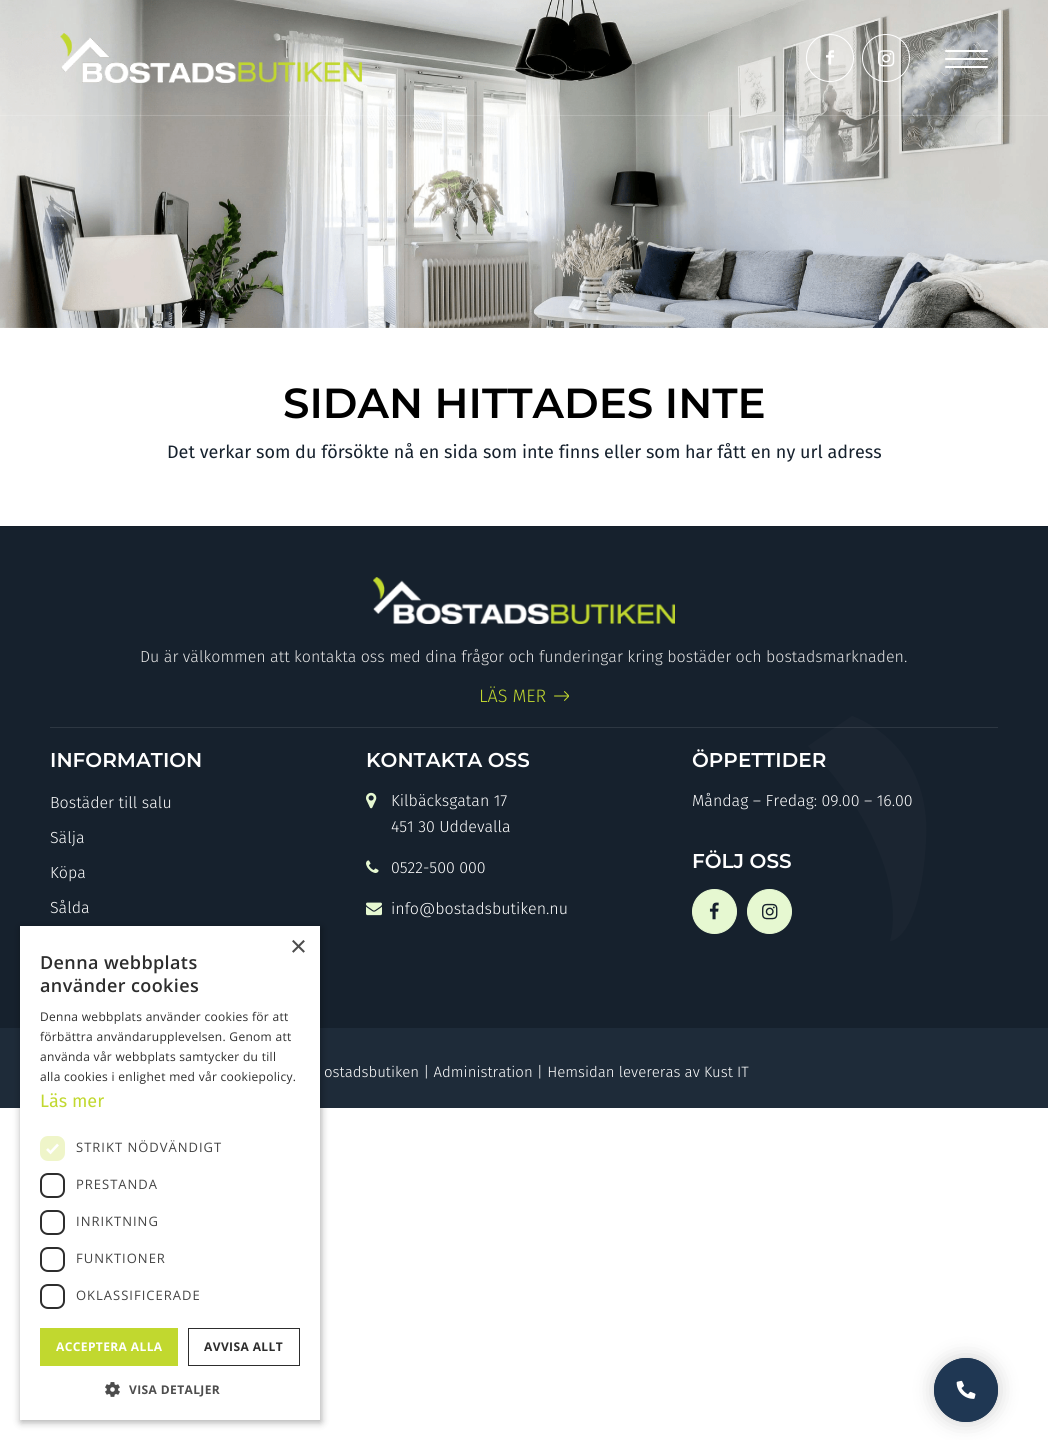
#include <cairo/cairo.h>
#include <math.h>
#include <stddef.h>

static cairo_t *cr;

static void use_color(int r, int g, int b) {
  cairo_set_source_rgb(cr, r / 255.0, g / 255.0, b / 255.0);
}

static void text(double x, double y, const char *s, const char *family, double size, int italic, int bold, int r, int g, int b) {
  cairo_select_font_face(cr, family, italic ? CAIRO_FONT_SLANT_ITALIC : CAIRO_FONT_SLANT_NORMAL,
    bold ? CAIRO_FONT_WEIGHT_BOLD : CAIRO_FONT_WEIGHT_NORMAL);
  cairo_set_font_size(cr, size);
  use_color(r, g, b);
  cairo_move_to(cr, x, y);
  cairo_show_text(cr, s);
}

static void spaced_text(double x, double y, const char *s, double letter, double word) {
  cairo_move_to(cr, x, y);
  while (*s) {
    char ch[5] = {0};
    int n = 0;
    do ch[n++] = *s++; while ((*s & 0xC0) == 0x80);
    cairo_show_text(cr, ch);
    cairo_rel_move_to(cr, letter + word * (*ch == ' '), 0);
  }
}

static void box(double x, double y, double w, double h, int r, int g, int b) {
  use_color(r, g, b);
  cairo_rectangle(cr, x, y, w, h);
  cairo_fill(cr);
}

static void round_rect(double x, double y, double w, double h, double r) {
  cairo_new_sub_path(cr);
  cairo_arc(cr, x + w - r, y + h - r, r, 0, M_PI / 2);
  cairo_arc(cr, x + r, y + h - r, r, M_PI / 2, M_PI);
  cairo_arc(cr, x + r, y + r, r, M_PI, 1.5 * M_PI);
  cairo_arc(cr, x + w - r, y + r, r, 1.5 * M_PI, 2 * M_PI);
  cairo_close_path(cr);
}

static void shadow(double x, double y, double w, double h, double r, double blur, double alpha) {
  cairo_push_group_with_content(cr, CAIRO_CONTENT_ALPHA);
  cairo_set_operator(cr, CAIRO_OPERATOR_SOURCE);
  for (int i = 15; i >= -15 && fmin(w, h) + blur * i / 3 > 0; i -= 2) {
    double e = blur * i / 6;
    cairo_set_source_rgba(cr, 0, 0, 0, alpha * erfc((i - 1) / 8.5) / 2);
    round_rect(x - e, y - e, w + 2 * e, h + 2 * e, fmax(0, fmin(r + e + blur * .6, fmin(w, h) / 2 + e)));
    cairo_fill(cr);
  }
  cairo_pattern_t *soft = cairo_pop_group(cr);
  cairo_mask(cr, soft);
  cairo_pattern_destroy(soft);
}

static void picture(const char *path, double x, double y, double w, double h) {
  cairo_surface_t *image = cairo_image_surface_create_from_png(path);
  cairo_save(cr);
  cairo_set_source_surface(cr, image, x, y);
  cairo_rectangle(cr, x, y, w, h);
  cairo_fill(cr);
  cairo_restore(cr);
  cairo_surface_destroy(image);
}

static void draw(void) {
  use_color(255, 255, 255);
  cairo_paint(cr);
  picture("img_04.png", 0, 0, 1048, 328);
  cairo_set_source_rgba(cr, 1, 1, 1, 0.17);
  cairo_rectangle(cr, 0, 115, 1048, 1);
  cairo_fill(cr);
  picture("img_01.png", 60, 33, 302, 50);
  cairo_arc(cr, 830, 58, 23.5, 0, 2 * M_PI);
  use_color(255, 255, 255);
  cairo_set_line_width(cr, 1);
  cairo_stroke(cr);
  picture("img_02.png", 826, 50, 8, 15);
  cairo_arc(cr, 886, 58, 23.5, 0, 2 * M_PI);
  cairo_stroke(cr);
  picture("img_03.png", 878, 50, 17, 17);
  round_rect(945, 58, 43, 2, 1);
  cairo_fill(cr);
  round_rect(945, 50, 43, 2, 1);
  cairo_fill(cr);
  round_rect(945, 66, 43, 2, 1);
  cairo_fill(cr);
  box(0, 527, 1048, 501, 22, 33, 45);
  box(0, 526, 1048, 1, 20, 30, 41);
  use_color(27, 37, 49);
  cairo_new_path(cr);
  cairo_move_to(cr, 808, 746);
  cairo_line_to(cr, 852, 716);
  cairo_curve_to(cr, 852, 716, 932, 742, 926, 841);
  cairo_curve_to(cr, 920, 941, 890, 941, 890, 941);
  cairo_curve_to(cr, 890, 941, 917, 863, 808, 746);
  cairo_close_path(cr);
  cairo_fill(cr);
  cairo_set_source_rgba(cr, 1, 1, 1, 0.1);
  cairo_rectangle(cr, 50, 727, 948, 1);
  cairo_fill(cr);
  picture("img_05.png", 373, 577, 302, 47);
  picture("img_06.png", 554, 691, 15, 10);
  picture("img_07.png", 366, 792, 11, 17);
  picture("img_08.png", 366, 860, 13, 13);
  picture("img_09.png", 366, 902, 16, 14);
  use_color(230, 248, 209);
  cairo_arc(cr, 714.5, 911.5, 22, 0, 2 * M_PI);
  cairo_fill_preserve(cr);
  cairo_stroke(cr);
  picture("img_10.png", 709, 902, 10, 18);
  cairo_arc(cr, 769.5, 911.5, 22, 0, 2 * M_PI);
  cairo_fill_preserve(cr);
  cairo_stroke(cr);
  picture("img_11.png", 762, 903, 16, 17);
  box(0, 1028, 1048, 80, 30, 43, 57);
  use_color(0, 0, 0);
  shadow(21, 928, 300, 494, 0, 4, 0.35);
  box(20, 926, 300, 494, 255, 255, 255);
  use_color(239, 245, 201);
  round_rect(40, 1136, 25, 25, 8);
  cairo_fill(cr);
  cairo_new_path(cr);
  cairo_move_to(cr, 47, 1149);
  cairo_line_to(cr, 50.5, 1152.5);
  cairo_line_to(cr, 58, 1144.5);
  use_color(255, 255, 255);
  cairo_set_line_width(cr, 2.6);
  cairo_stroke(cr);
  round_rect(41, 1174, 23, 23, 7);
  use_color(45, 45, 45);
  cairo_set_line_width(cr, 2);
  cairo_stroke(cr);
  round_rect(41, 1211, 23, 23, 7);
  cairo_stroke(cr);
  round_rect(41, 1248, 23, 23, 7);
  cairo_stroke(cr);
  round_rect(41, 1285, 23, 23, 7);
  cairo_stroke(cr);
  box(40, 1328, 138, 38, 193, 216, 47);
  cairo_rectangle(cr, 188.5, 1328.5, 111, 37);
  use_color(45, 45, 45);
  cairo_set_line_width(cr, 1);
  cairo_stroke(cr);
  picture("img_12.png", 105, 1382, 15, 15);
  use_color(0, 0, 0);
  shadow(934, 1358, 64, 64, 32, 10, 0.2);
  use_color(31, 55, 83);
  cairo_arc(cr, 966, 1390, 32, 0, 2 * M_PI);
  cairo_fill(cr);
  picture("img_13.png", 956, 1380, 20, 19);
  cairo_arc(cr, 966, 1390, 31.5, 0, 2 * M_PI);
  cairo_stroke(cr);
  text(283, 418, "SIDAN HITTADES INTE", "Montserrat SemiBold", 42, 0, 0, 0, 0, 0);
  text(167, 458, "Det verkar som du försökte nå en sida som inte finns eller som har fått en ny url adress", "Fira Sans", 18, 0, 0, 22, 33, 45);
  text(140, 662, "Du är välkommen att kontakta oss med dina frågor och funderingar kring bostäder och bostadsmarknaden.", "Fira Sans Light", 16, 0, 0, 229, 229, 229);
  text(479, 702, "LÄS MER", "Fira Sans Light", 18, 0, 0, 193, 216, 47);
  text(50, 767, "INFORMATION", "Montserrat SemiBold", 20, 0, 0, 255, 255, 255);
  text(50, 808, "Bostäder till salu", "Fira Sans Light", 16, 0, 0, 255, 255, 255);
  text(50, 843, "Sälja", "Fira Sans Light", 16, 0, 0, 255, 255, 255);
  text(50, 878, "Köpa", "Fira Sans Light", 16, 0, 0, 255, 255, 255);
  text(50, 913, "Sålda", "Fira Sans Light", 16, 0, 0, 255, 255, 255);
  text(366, 767, "KONTAKTA OSS", "Montserrat SemiBold", 20, 0, 0, 255, 255, 255);
  text(391, 806, "Kilbäcksgatan 17", "Fira Sans Light", 16, 0, 0, 255, 255, 255);
  text(391, 832, "451 30 Uddevalla", "Fira Sans Light", 16, 0, 0, 255, 255, 255);
  text(391, 873, "0522-500 000", "Fira Sans Light", 16, 0, 0, 255, 255, 255);
  text(391, 914, "info@bostadsbutiken.nu", "Fira Sans Light", 16, 0, 0, 255, 255, 255);
  text(692, 767, "ÖPPETTIDER", "Montserrat SemiBold", 20, 0, 0, 255, 255, 255);
  text(692, 806, "Måndag – Fredag: 09.00 – 16.00", "Fira Sans Light", 16, 0, 0, 255, 255, 255);
  text(692, 868, "FÖLJ OSS", "Montserrat SemiBold", 20, 0, 0, 255, 255, 255);
  text(324, 1077, "ostadsbutiken | Administration | Hemsidan levereras av Kust IT", "Fira Sans Light", 15, 0, 0, 255, 255, 255);
  text(290, 956, "×", "Liberation Sans", 29, 0, 0, 77, 77, 77);
  cairo_select_font_face(cr, "Open Sans SemiBold", CAIRO_FONT_SLANT_NORMAL, CAIRO_FONT_WEIGHT_NORMAL);
  cairo_set_font_size(cr, 18);
  use_color(45, 45, 45);
  spaced_text(40, 969, "Denna webbplats", 0.4, 0);
  spaced_text(40, 992, "använder cookies", 0.4, 0);
  cairo_select_font_face(cr, "Open Sans", CAIRO_FONT_SLANT_NORMAL, CAIRO_FONT_WEIGHT_NORMAL);
  cairo_set_font_size(cr, 12);
  spaced_text(40, 1021, "Denna webbplats använder cookies för att", 0.3, 0);
  spaced_text(40, 1041, "förbättra användarupplevelsen. Genom att", 0.3, 0);
  spaced_text(40, 1061, "använda vår webbplats samtycker du till", 0.3, 0);
  spaced_text(40, 1081, "alla cookies i enlighet med vår cookiepolicy.", 0.3, 0);
  text(40, 1107, "Läs mer", "Fira Sans", 18, 0, 0, 193, 216, 47);
  cairo_select_font_face(cr, "Open Sans", CAIRO_FONT_SLANT_NORMAL, CAIRO_FONT_WEIGHT_NORMAL);
  cairo_set_font_size(cr, 13);
  use_color(68, 68, 68);
  spaced_text(76, 1152, "STRIKT NÖDVÄNDIGT", 1, 0);
  spaced_text(76, 1189, "PRESTANDA", 1, 0);
  spaced_text(76, 1226, "INRIKTNING", 1, 0);
  spaced_text(76, 1263, "FUNKTIONER", 1, 0);
  spaced_text(76, 1300, "OKLASSIFICERADE", 1, 0);
  cairo_select_font_face(cr, "Open Sans", CAIRO_FONT_SLANT_NORMAL, CAIRO_FONT_WEIGHT_BOLD);
  cairo_set_font_size(cr, 12);
  use_color(255, 255, 255);
  spaced_text(56, 1351, "ACCEPTERA ALLA", 0.4, 0);
  use_color(45, 45, 45);
  spaced_text(204, 1351, "AVVISA ALLT", 0.4, 0);
  use_color(77, 77, 77);
  spaced_text(129, 1394, "VISA DETALJER", 0.4, 0);
}

int main(void) {
  cairo_surface_t *surface = cairo_image_surface_create(CAIRO_FORMAT_RGB24, 1048, 1440);
  cr = cairo_create(surface);
  cairo_font_options_t *options = cairo_font_options_create();
  cairo_font_options_set_hint_metrics(options, CAIRO_HINT_METRICS_OFF);
  cairo_font_options_set_hint_style(options, CAIRO_HINT_STYLE_NONE);
  cairo_set_font_options(cr, options);
  cairo_set_miter_limit(cr, 4);
  draw();
  cairo_surface_write_to_png(surface, "out.png");
  cairo_font_options_destroy(options);
  cairo_destroy(cr);
  cairo_surface_destroy(surface);
  return 0;
}
